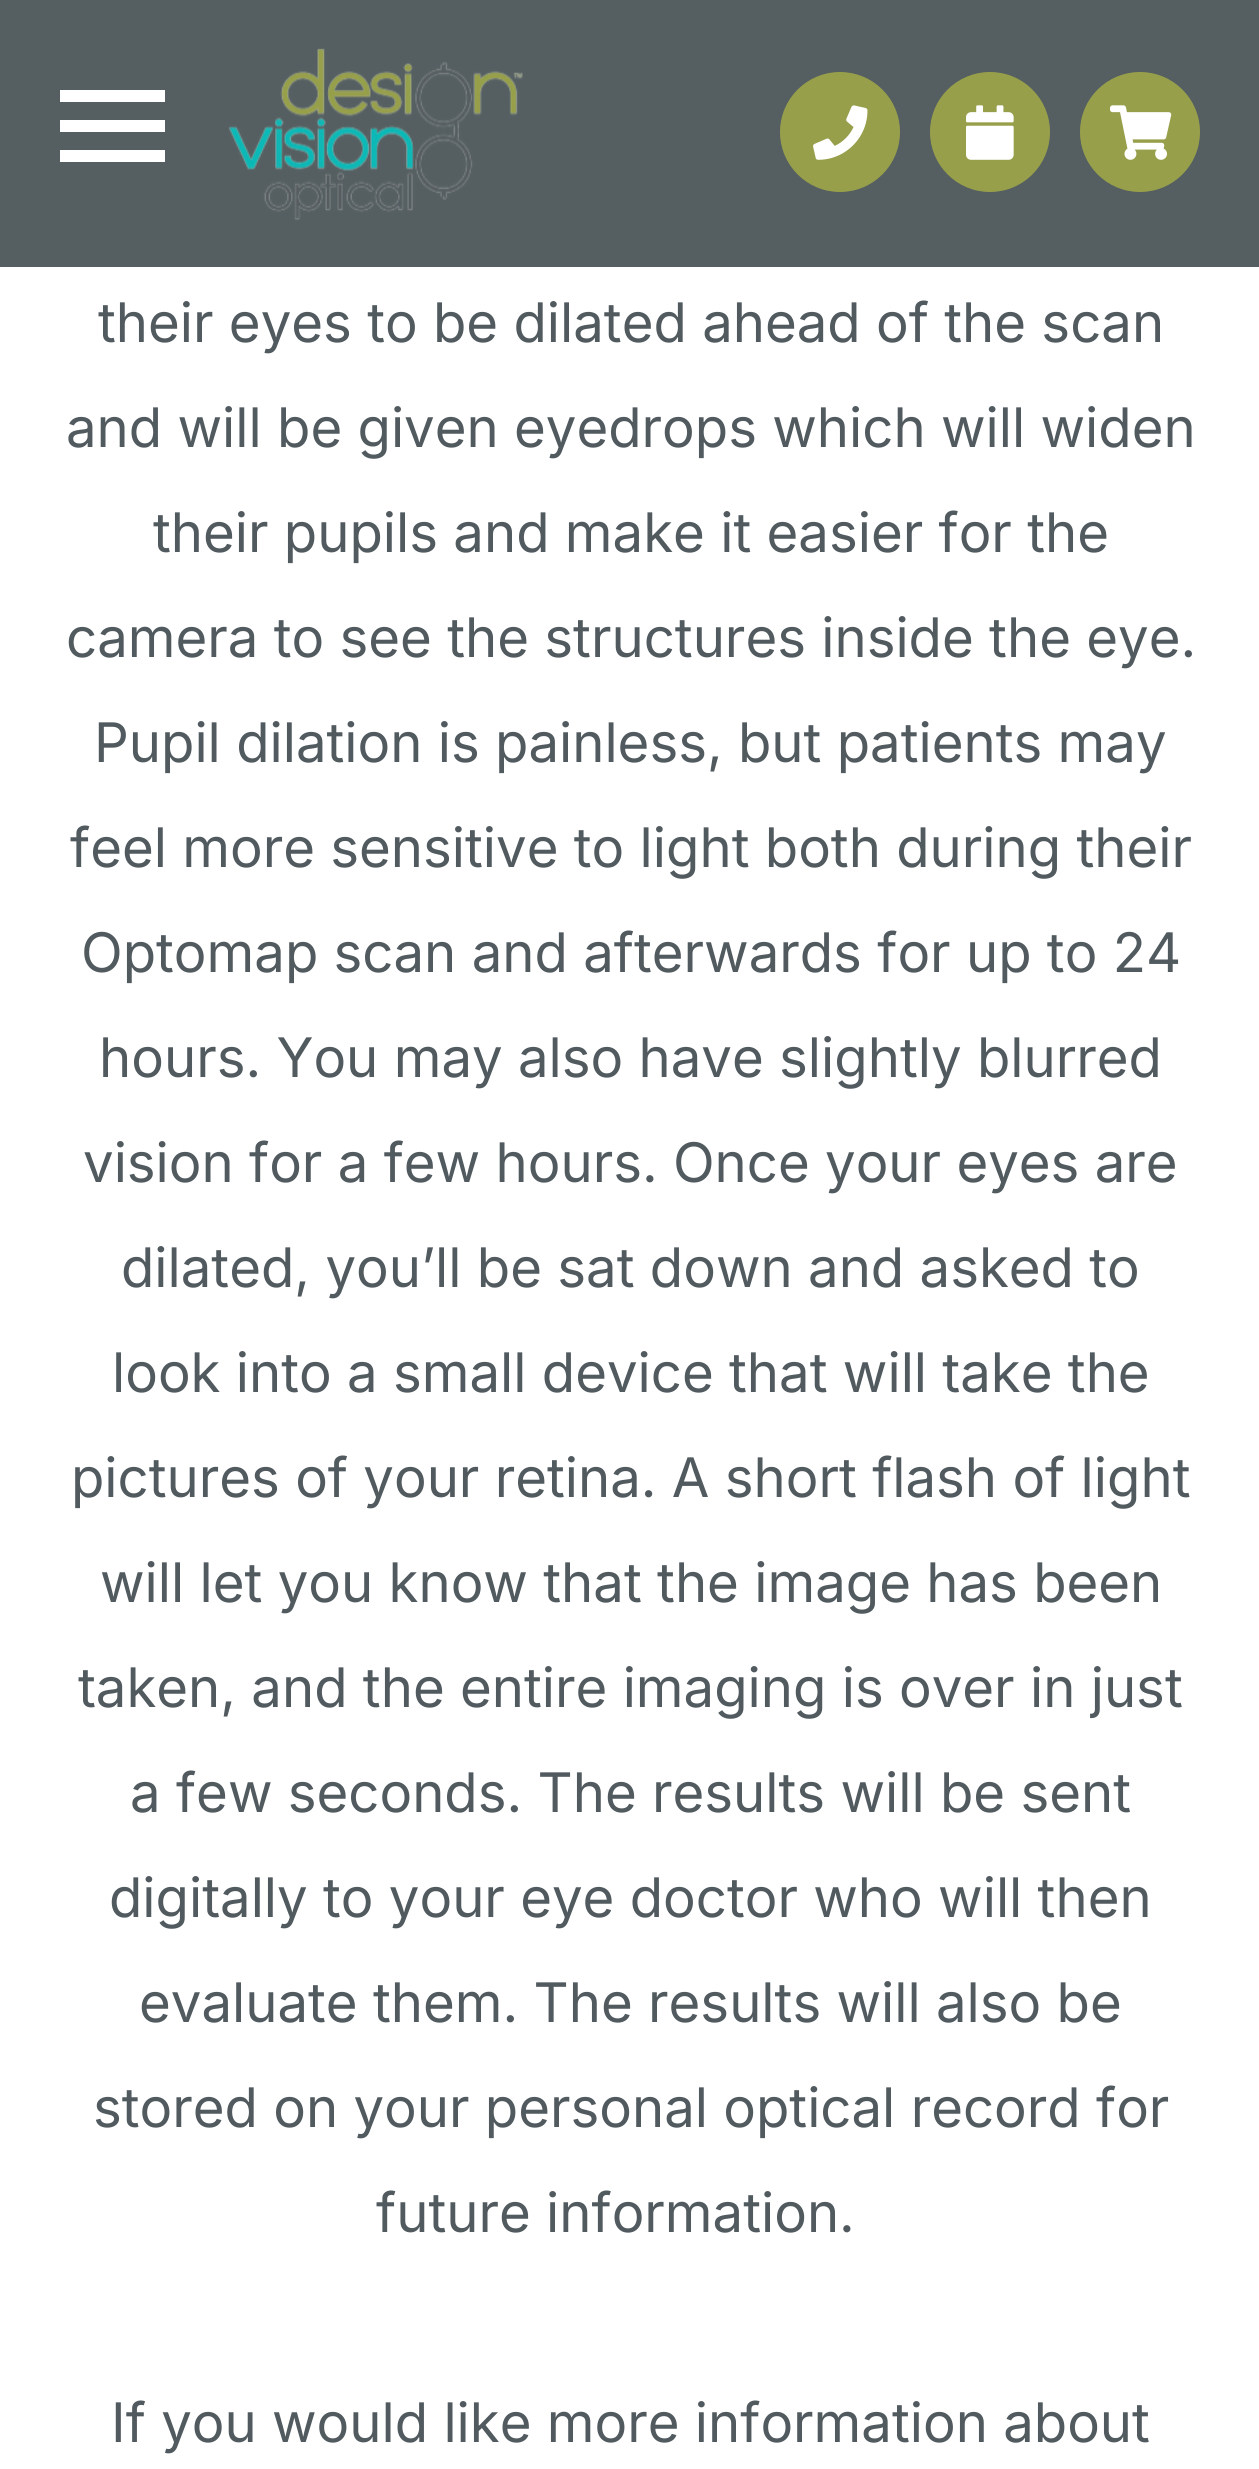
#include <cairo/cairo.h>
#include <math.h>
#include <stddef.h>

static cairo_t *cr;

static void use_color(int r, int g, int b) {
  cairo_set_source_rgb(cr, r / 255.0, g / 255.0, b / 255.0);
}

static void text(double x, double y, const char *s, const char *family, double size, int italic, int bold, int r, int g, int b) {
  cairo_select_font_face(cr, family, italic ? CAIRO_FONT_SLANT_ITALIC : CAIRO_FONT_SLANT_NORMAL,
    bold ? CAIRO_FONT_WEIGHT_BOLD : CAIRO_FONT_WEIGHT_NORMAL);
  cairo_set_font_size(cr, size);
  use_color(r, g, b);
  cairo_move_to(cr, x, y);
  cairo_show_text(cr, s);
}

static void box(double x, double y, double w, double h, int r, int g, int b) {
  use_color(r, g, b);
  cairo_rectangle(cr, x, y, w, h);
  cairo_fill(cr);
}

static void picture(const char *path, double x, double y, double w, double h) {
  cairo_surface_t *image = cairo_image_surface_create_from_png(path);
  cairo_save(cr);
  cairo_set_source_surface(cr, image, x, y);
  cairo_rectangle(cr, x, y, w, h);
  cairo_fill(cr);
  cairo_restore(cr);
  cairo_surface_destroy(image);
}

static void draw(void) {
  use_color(255, 255, 255);
  cairo_paint(cr);
  box(0, 0, 1259, 267, 85, 95, 97);
  box(60, 150, 105, 12, 255, 255, 255);
  box(60, 90, 105, 12, 255, 255, 255);
  box(60, 120, 105, 12, 255, 255, 255);
  picture("img_01.png", 228, 48, 295, 172);
  use_color(151, 159, 75);
  cairo_arc(cr, 840, 132, 60, 0, 2 * M_PI);
  cairo_fill(cr);
  picture("img_02.png", 813, 105, 55, 55);
  cairo_arc(cr, 990, 132, 60, 0, 2 * M_PI);
  cairo_fill(cr);
  picture("img_03.png", 966, 105, 48, 55);
  cairo_arc(cr, 1140, 132, 60, 0, 2 * M_PI);
  cairo_fill(cr);
  picture("img_04.png", 1110, 105, 62, 55);
  text(98, 342, "their eyes to be dilated ahead of the scan", "Inter", 54.5, 0, 0, 81, 90, 95);
  text(66, 447, "and will be given eyedrops which will widen", "Inter", 54.5, 0, 0, 81, 90, 95);
  text(153, 552, "their pupils and make it easier for the", "Inter", 54.5, 0, 0, 81, 90, 95);
  text(66, 657, "camera to see the structures inside the eye.", "Inter", 54.5, 0, 0, 81, 90, 95);
  text(94, 762, "Pupil dilation is painless, but patients may", "Inter", 54.5, 0, 0, 81, 90, 95);
  text(70, 867, "feel more sensitive to light both during their", "Inter", 54.5, 0, 0, 81, 90, 95);
  text(81, 972, "Optomap scan and afterwards for up to 24", "Inter", 54.5, 0, 0, 81, 90, 95);
  text(99, 1077, "hours. You may also have slightly blurred", "Inter", 54.5, 0, 0, 81, 90, 95);
  text(83, 1182, "vision for a few hours. Once your eyes are", "Inter", 54.5, 0, 0, 81, 90, 95);
  text(121, 1287, "dilated, you’ll be sat down and asked to", "Inter", 54.5, 0, 0, 81, 90, 95);
  text(112, 1392, "look into a small device that will take the", "Inter", 54.5, 0, 0, 81, 90, 95);
  text(71, 1497, "pictures of your retina. A short flash of light", "Inter", 54.5, 0, 0, 81, 90, 95);
  text(100, 1602, "will let you know that the image has been", "Inter", 54.5, 0, 0, 81, 90, 95);
  text(78, 1707, "taken, and the entire imaging is over in just", "Inter", 54.5, 0, 0, 81, 90, 95);
  text(130, 1812, "a few seconds. The results will be sent", "Inter", 54.5, 0, 0, 81, 90, 95);
  text(109, 1917, "digitally to your eye doctor who will then", "Inter", 54.5, 0, 0, 81, 90, 95);
  text(139, 2022, "evaluate them. The results will also be", "Inter", 54.5, 0, 0, 81, 90, 95);
  text(93, 2127, "stored on your personal optical record for", "Inter", 54.5, 0, 0, 81, 90, 95);
  text(376, 2232, "future information.", "Inter", 54.5, 0, 0, 81, 90, 95);
  text(111, 2442, "If you would like more information about", "Inter", 54.5, 0, 0, 81, 90, 95);
}

int main(void) {
  cairo_surface_t *surface = cairo_image_surface_create(CAIRO_FORMAT_RGB24, 1259, 2469);
  cr = cairo_create(surface);
  cairo_font_options_t *options = cairo_font_options_create();
  cairo_font_options_set_hint_metrics(options, CAIRO_HINT_METRICS_OFF);
  cairo_font_options_set_hint_style(options, CAIRO_HINT_STYLE_NONE);
  cairo_set_font_options(cr, options);
  cairo_set_miter_limit(cr, 4);
  draw();
  cairo_surface_write_to_png(surface, "out.png");
  cairo_font_options_destroy(options);
  cairo_destroy(cr);
  cairo_surface_destroy(surface);
  return 0;
}
